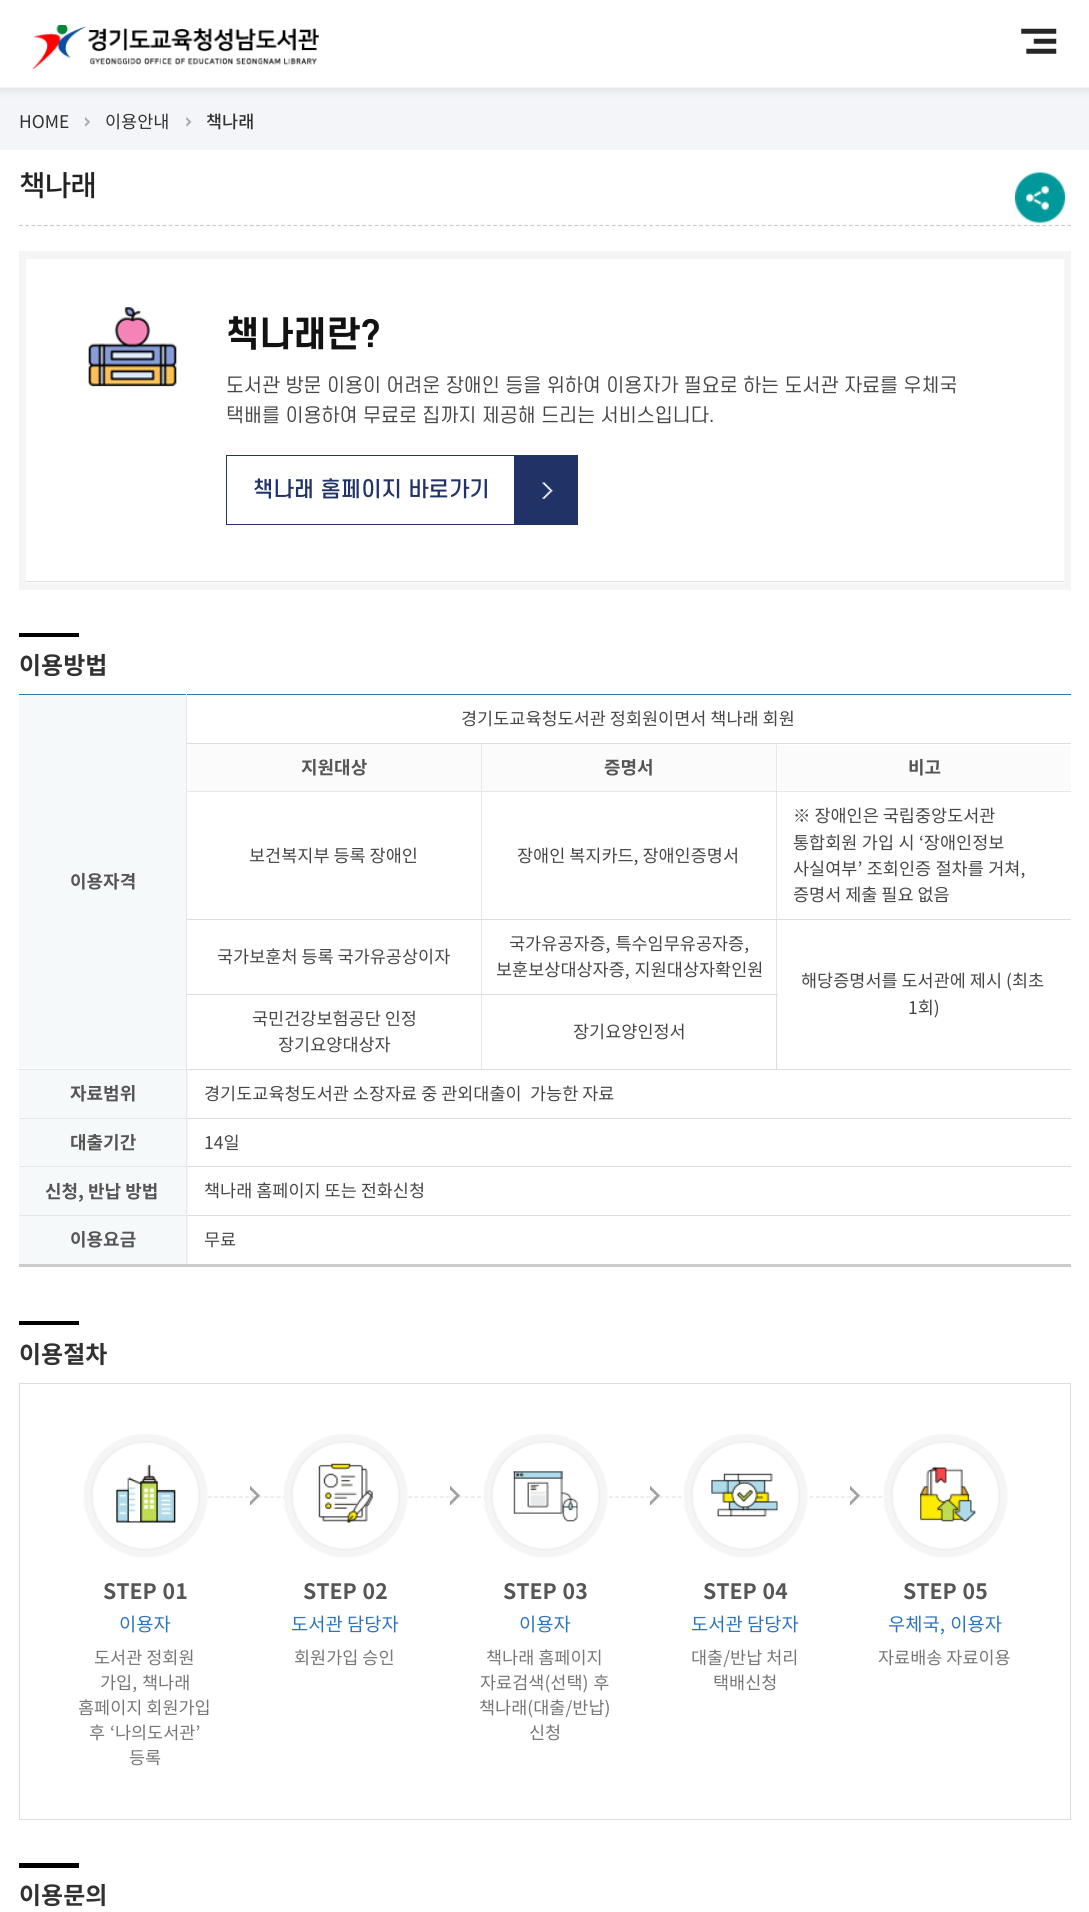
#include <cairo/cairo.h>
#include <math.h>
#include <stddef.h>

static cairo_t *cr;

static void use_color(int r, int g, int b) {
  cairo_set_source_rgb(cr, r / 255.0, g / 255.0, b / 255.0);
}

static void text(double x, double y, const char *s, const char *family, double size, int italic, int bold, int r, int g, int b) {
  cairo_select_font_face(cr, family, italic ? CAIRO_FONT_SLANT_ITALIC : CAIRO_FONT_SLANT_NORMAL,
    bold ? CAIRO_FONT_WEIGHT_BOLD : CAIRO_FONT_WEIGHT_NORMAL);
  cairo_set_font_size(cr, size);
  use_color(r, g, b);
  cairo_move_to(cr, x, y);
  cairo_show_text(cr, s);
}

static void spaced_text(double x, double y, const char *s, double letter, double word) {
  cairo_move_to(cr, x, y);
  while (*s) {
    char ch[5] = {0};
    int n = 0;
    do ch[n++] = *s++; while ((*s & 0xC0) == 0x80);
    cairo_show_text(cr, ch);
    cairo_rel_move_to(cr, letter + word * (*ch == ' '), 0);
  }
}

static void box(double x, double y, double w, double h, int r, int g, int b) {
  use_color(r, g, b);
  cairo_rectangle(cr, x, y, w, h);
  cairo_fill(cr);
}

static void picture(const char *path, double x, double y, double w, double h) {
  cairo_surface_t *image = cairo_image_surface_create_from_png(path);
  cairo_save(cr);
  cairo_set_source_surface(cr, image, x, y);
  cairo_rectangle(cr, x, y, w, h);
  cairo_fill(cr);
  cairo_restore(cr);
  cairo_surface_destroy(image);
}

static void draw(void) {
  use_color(255, 255, 255);
  cairo_paint(cr);
  picture("img_01.png", 32, 25, 287, 44);
  picture("img_02.png", 1021, 28, 36, 26);
  picture("img_03.png", 0, 87, 1089, 63);
  picture("img_04.png", 84, 117, 7, 10);
  picture("img_05.png", 186, 117, 6, 10);
  cairo_new_path(cr);
  cairo_move_to(cr, 19, 225.5);
  cairo_line_to(cr, 1071, 225.5);
  use_color(204, 204, 204);
  cairo_set_line_width(cr, 1.2);
  cairo_set_dash(cr, (double[]){3.75, 2.49}, 2, 0);
  cairo_stroke(cr);
  picture("img_06.png", 1015, 172, 50, 51);
  box(19, 251, 1052, 339, 245, 245, 245);
  box(26, 259, 1038, 324, 255, 255, 255);
  box(26, 581, 1038, 1, 221, 221, 221);
  picture("img_07.png", 88, 307, 89, 80);
  box(515, 455, 63, 70, 33, 50, 102);
  cairo_rectangle(cr, 226.5, 455.5, 288, 69);
  cairo_set_line_width(cr, 1);
  cairo_set_dash(cr, NULL, 0, 0);
  cairo_stroke(cr);
  picture("img_08.png", 542, 482, 11, 17);
  box(19, 633, 60, 4, 0, 0, 0);
  box(19, 1216, 169, 48, 245, 249, 250);
  box(186, 1215, 1, 50, 229, 232, 235);
  box(19, 1264, 1052, 3, 204, 204, 204);
  box(19, 694, 1052, 1, 48, 119, 171);
  box(188, 744, 588, 47, 251, 251, 251);
  box(186, 791, 885, 1, 229, 232, 235);
  box(776, 919, 1, 76, 229, 232, 235);
  box(776, 919, 295, 1, 221, 221, 221);
  box(776, 743, 1, 177, 229, 232, 235);
  box(481, 1069, 590, 1, 221, 221, 221);
  box(481, 994, 1, 76, 229, 232, 235);
  box(481, 994, 297, 1, 221, 221, 221);
  box(481, 919, 1, 76, 229, 232, 235);
  box(481, 919, 297, 1, 221, 221, 221);
  box(481, 743, 1, 177, 229, 232, 235);
  box(186, 743, 885, 1, 221, 221, 221);
  box(19, 696, 167, 372, 245, 249, 250);
  box(186, 919, 297, 1, 221, 221, 221);
  box(186, 994, 297, 1, 221, 221, 221);
  box(19, 1070, 169, 48, 245, 249, 250);
  box(19, 1119, 169, 47, 245, 249, 250);
  box(19, 1167, 169, 48, 245, 249, 250);
  box(186, 1215, 885, 1, 221, 221, 221);
  box(186, 1166, 1, 50, 229, 232, 235);
  box(186, 1166, 885, 1, 221, 221, 221);
  box(186, 1118, 1, 50, 229, 232, 235);
  box(186, 1118, 885, 1, 221, 221, 221);
  box(186, 1069, 1, 50, 229, 232, 235);
  box(186, 1069, 297, 1, 221, 221, 221);
  box(186, 694, 1, 376, 229, 232, 235);
  box(19, 1069, 169, 1, 229, 232, 235);
  box(778, 745, 293, 45, 251, 251, 251);
  box(776, 995, 1, 75, 221, 221, 221);
  box(19, 1118, 169, 1, 229, 232, 235);
  box(19, 1166, 169, 1, 229, 232, 235);
  box(19, 1215, 169, 1, 229, 232, 235);
  box(19, 1321, 60, 4, 0, 0, 0);
  cairo_rectangle(cr, 19.5, 1383.5, 1051, 436);
  use_color(221, 221, 221);
  cairo_stroke(cr);
  cairo_new_path(cr);
  cairo_move_to(cr, 145, 1497);
  cairo_line_to(cr, 945, 1497);
  use_color(226, 226, 226);
  cairo_set_line_width(cr, 1.2);
  cairo_set_dash(cr, (double[]){3.75, 2.52}, 2, 0);
  cairo_stroke(cr);
  picture("img_09.png", 84, 1434, 124, 124);
  picture("img_10.png", 116, 1464, 60, 59);
  picture("img_11.png", 250, 1486, 10, 19);
  picture("img_12.png", 284, 1434, 124, 124);
  picture("img_13.png", 318, 1463, 55, 60);
  picture("img_14.png", 450, 1486, 10, 19);
  picture("img_15.png", 484, 1434, 124, 124);
  picture("img_16.png", 513, 1471, 65, 51);
  picture("img_17.png", 650, 1486, 10, 19);
  picture("img_18.png", 684, 1434, 124, 124);
  picture("img_19.png", 711, 1473, 67, 44);
  picture("img_20.png", 850, 1486, 10, 19);
  picture("img_12.png", 884, 1434, 124, 124);
  picture("img_21.png", 920, 1467, 56, 55);
  box(19, 1863, 60, 5, 0, 0, 0);
  text(19, 128, "HOME", "Noto Sans KR", 17.5, 0, 0, 49, 49, 49);
  text(105, 128, "이용안내", "Noto Sans KR", 17.5, 0, 0, 49, 49, 49);
  text(206, 128, "책나래", "Noto Sans KR Medium", 17.5, 0, 0, 49, 49, 49);
  cairo_set_font_size(cr, 29);
  use_color(34, 34, 34);
  spaced_text(19, 196, "책나래", -1, 0);
  text(226, 347, "책나래란?", "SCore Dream", 35, 0, 1, 18, 18, 18);
  text(226, 392, "도서관 방문 이용이 어려운 장애인 등을 위하여 이용자가 필요로 하는 도서관 자료를 우체국", "SCore Dream", 18.75, 0, 0, 70, 70, 70);
  text(226, 422, "택배를 이용하여 무료로 집까지 제공해 드리는 서비스입니다.", "SCore Dream", 18.75, 0, 0, 70, 70, 70);
  text(253, 497, "책나래 홈페이지 바로가기", "SCore Dream Medium", 21.25, 0, 0, 33, 50, 102);
  text(19, 674, "이용방법", "Noto Sans KR", 24, 0, 1, 49, 49, 49);
  text(461, 725, "경기도교육청도서관 정회원이면서 책나래 회원", "Noto Sans KR", 17.5, 0, 0, 70, 70, 70);
  text(70, 888, "이용자격", "Noto Sans KR", 18, 0, 1, 85, 85, 85);
  text(301, 774, "지원대상", "Noto Sans KR", 18, 0, 1, 85, 85, 85);
  text(604, 774, "증명서", "Noto Sans KR", 18, 0, 1, 85, 85, 85);
  text(908, 774, "비고", "Noto Sans KR", 18, 0, 1, 85, 85, 85);
  text(249, 862, "보건복지부 등록 장애인", "Noto Sans KR", 17.5, 0, 0, 70, 70, 70);
  text(517, 862, "장애인 복지카드, 장애인증명서", "Noto Sans KR", 17.5, 0, 0, 70, 70, 70);
  text(793, 822, "※ 장애인은 국립중앙도서관", "Noto Sans KR", 17.5, 0, 0, 70, 70, 70);
  spaced_text(793, 849, "통합회원 가입 시 ‘장애인정보", 0, 0.5);
  spaced_text(793, 875, "사실여부’ 조회인증 절차를 거쳐,", 0, 0.5);
  text(793, 901, "증명서 제출 필요 없음", "Noto Sans KR", 17.5, 0, 0, 70, 70, 70);
  text(217, 963, "국가보훈처 등록 국가유공상이자", "Noto Sans KR", 17.5, 0, 0, 70, 70, 70);
  spaced_text(509, 950, "국가유공자증, 특수임무유공자증,", 0, 1);
  spaced_text(496, 976, "보훈보상대상자증, 지원대상자확인원", 0, 1);
  text(801, 987, "해당증명서를 도서관에 제시 (최초", "Noto Sans KR", 17.5, 0, 0, 70, 70, 70);
  text(908, 1014, "1회)", "Noto Sans KR", 17.5, 0, 0, 70, 70, 70);
  text(252, 1025, "국민건강보험공단 인정", "Noto Sans KR", 17.5, 0, 0, 70, 70, 70);
  text(278, 1051, "장기요양대상자", "Noto Sans KR", 17.5, 0, 0, 70, 70, 70);
  text(573, 1038, "장기요양인정서", "Noto Sans KR", 17.5, 0, 0, 70, 70, 70);
  text(70, 1100, "자료범위", "Noto Sans KR", 18, 0, 1, 85, 85, 85);
  text(204, 1100, "경기도교육청도서관 소장자료 중 관외대출이", "Noto Sans KR", 17.5, 0, 0, 70, 70, 70);
  text(530, 1100, "가능한 자료", "Noto Sans KR", 17.5, 0, 0, 70, 70, 70);
  text(70, 1149, "대출기간", "Noto Sans KR", 18, 0, 1, 85, 85, 85);
  text(204, 1149, "14일", "Noto Sans KR", 17.5, 0, 0, 70, 70, 70);
  text(45, 1198, "신청, 반납 방법", "Noto Sans KR", 18, 0, 1, 85, 85, 85);
  text(204, 1197, "책나래 홈페이지 또는 전화신청", "Noto Sans KR", 17.5, 0, 0, 70, 70, 70);
  text(70, 1246, "이용요금", "Noto Sans KR", 18, 0, 1, 85, 85, 85);
  text(204, 1246, "무료", "Noto Sans KR", 17.5, 0, 0, 70, 70, 70);
  text(19, 1363, "이용절차", "Noto Sans KR", 24, 0, 1, 49, 49, 49);
  cairo_set_font_size(cr, 21.25);
  use_color(85, 85, 85);
  spaced_text(103, 1599, "STEP 01", 0, 1);
  text(119, 1631, "이용자", "Noto Sans KR", 18.75, 0, 0, 43, 116, 192);
  text(94, 1664, "도서관 정회원", "Noto Sans KR", 17.5, 0, 0, 118, 118, 118);
  spaced_text(100, 1689, "가입, 책나래", 0, 1);
  text(78, 1714, "홈페이지 회원가입", "Noto Sans KR", 17.5, 0, 0, 118, 118, 118);
  spaced_text(89, 1739, "후 ‘나의도서관’", 0, 1);
  text(129, 1764, "등록", "Noto Sans KR", 17.5, 0, 0, 118, 118, 118);
  cairo_select_font_face(cr, "Noto Sans KR", CAIRO_FONT_SLANT_NORMAL, CAIRO_FONT_WEIGHT_BOLD);
  cairo_set_font_size(cr, 21.25);
  use_color(85, 85, 85);
  spaced_text(303, 1599, "STEP 02", 0, 1);
  text(291, 1631, "도서관 담당자", "Noto Sans KR", 18.75, 0, 0, 43, 116, 192);
  text(294, 1664, "회원가입 승인", "Noto Sans KR", 17.5, 0, 0, 118, 118, 118);
  cairo_select_font_face(cr, "Noto Sans KR", CAIRO_FONT_SLANT_NORMAL, CAIRO_FONT_WEIGHT_BOLD);
  cairo_set_font_size(cr, 21.25);
  use_color(85, 85, 85);
  spaced_text(503, 1599, "STEP 03", 0, 1);
  text(519, 1631, "이용자", "Noto Sans KR", 18.75, 0, 0, 43, 116, 192);
  text(486, 1664, "책나래 홈페이지", "Noto Sans KR", 17.5, 0, 0, 118, 118, 118);
  spaced_text(480, 1689, "자료검색(선택) 후", 0, 1);
  text(479, 1714, "책나래(대출/반납)", "Noto Sans KR", 17.5, 0, 0, 118, 118, 118);
  text(529, 1739, "신청", "Noto Sans KR", 17.5, 0, 0, 118, 118, 118);
  cairo_select_font_face(cr, "Noto Sans KR", CAIRO_FONT_SLANT_NORMAL, CAIRO_FONT_WEIGHT_BOLD);
  cairo_set_font_size(cr, 21.25);
  use_color(85, 85, 85);
  spaced_text(703, 1599, "STEP 04", 0, 1);
  text(691, 1631, "도서관 담당자", "Noto Sans KR", 18.75, 0, 0, 43, 116, 192);
  text(691, 1664, "대출/반납 처리", "Noto Sans KR", 17.5, 0, 0, 118, 118, 118);
  text(713, 1689, "택배신청", "Noto Sans KR", 17.5, 0, 0, 118, 118, 118);
  cairo_select_font_face(cr, "Noto Sans KR", CAIRO_FONT_SLANT_NORMAL, CAIRO_FONT_WEIGHT_BOLD);
  cairo_set_font_size(cr, 21.25);
  use_color(85, 85, 85);
  spaced_text(903, 1599, "STEP 05", 0, 1);
  cairo_select_font_face(cr, "Noto Sans KR", CAIRO_FONT_SLANT_NORMAL, CAIRO_FONT_WEIGHT_NORMAL);
  cairo_set_font_size(cr, 18.75);
  use_color(43, 116, 192);
  spaced_text(888, 1631, "우체국, 이용자", 0, 1);
  text(878, 1664, "자료배송 자료이용", "Noto Sans KR", 17.5, 0, 0, 118, 118, 118);
  text(19, 1904, "이용문의", "Noto Sans KR", 24, 0, 1, 49, 49, 49);
}

int main(void) {
  cairo_surface_t *surface = cairo_image_surface_create(CAIRO_FORMAT_RGB24, 1089, 1912);
  cr = cairo_create(surface);
  cairo_font_options_t *options = cairo_font_options_create();
  cairo_font_options_set_hint_metrics(options, CAIRO_HINT_METRICS_OFF);
  cairo_font_options_set_hint_style(options, CAIRO_HINT_STYLE_NONE);
  cairo_set_font_options(cr, options);
  cairo_set_miter_limit(cr, 4);
  draw();
  cairo_surface_write_to_png(surface, "out.png");
  cairo_font_options_destroy(options);
  cairo_destroy(cr);
  cairo_surface_destroy(surface);
  return 0;
}
